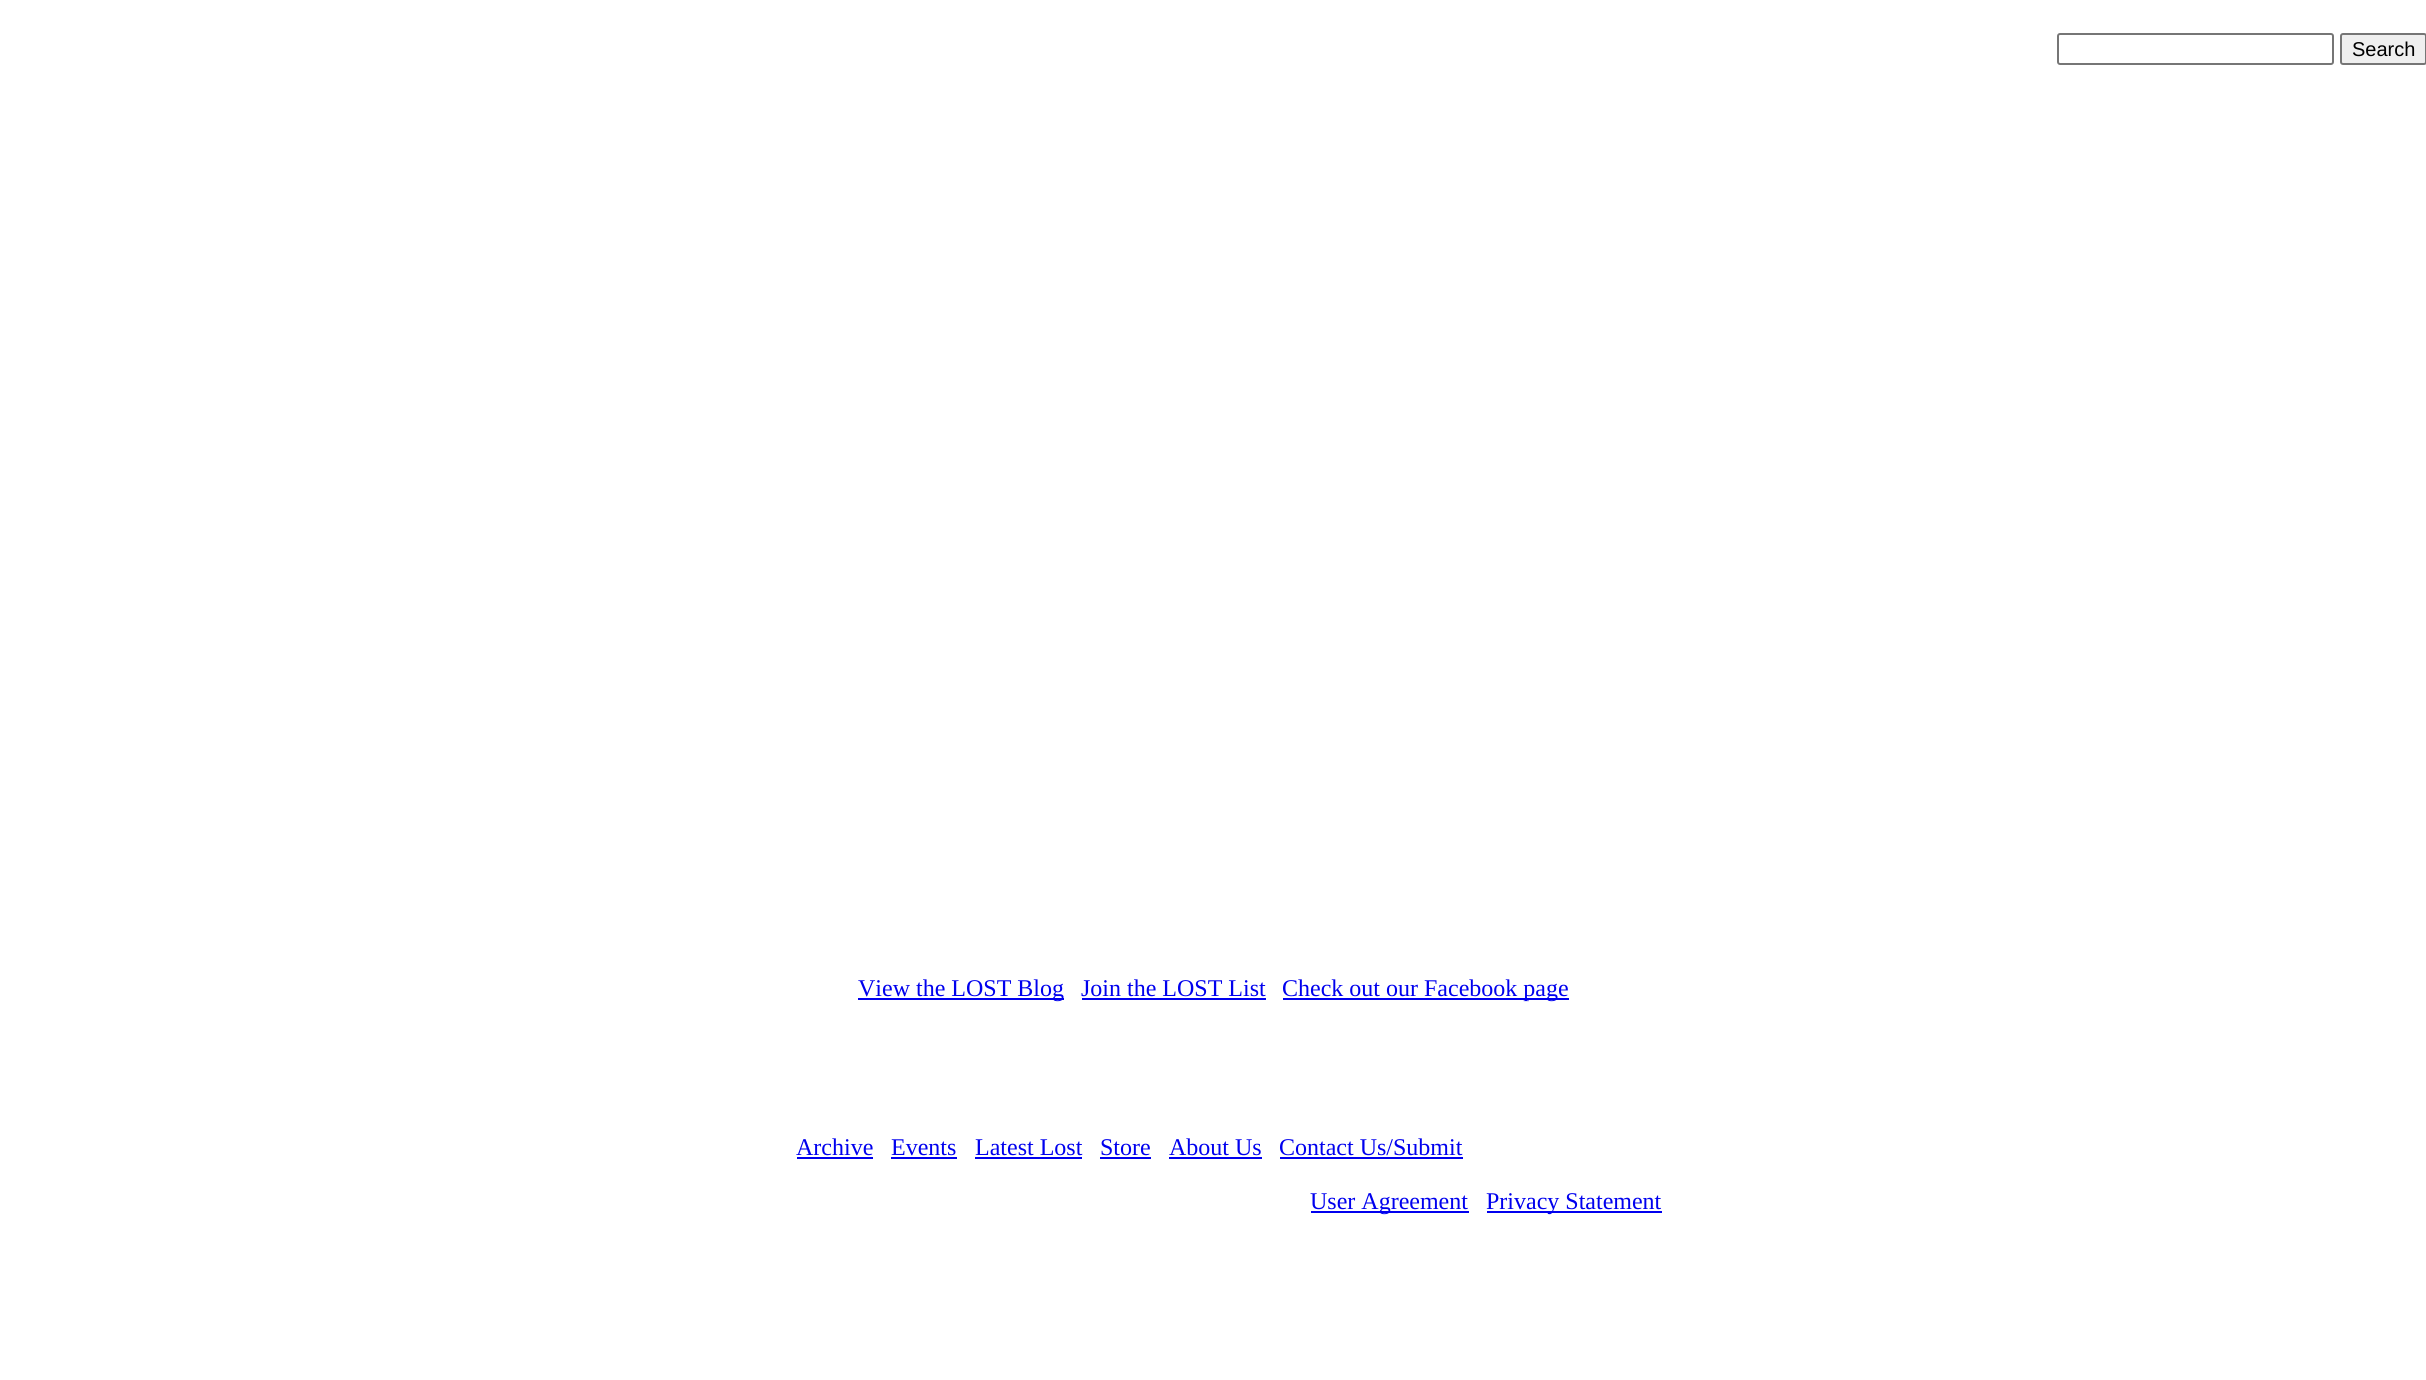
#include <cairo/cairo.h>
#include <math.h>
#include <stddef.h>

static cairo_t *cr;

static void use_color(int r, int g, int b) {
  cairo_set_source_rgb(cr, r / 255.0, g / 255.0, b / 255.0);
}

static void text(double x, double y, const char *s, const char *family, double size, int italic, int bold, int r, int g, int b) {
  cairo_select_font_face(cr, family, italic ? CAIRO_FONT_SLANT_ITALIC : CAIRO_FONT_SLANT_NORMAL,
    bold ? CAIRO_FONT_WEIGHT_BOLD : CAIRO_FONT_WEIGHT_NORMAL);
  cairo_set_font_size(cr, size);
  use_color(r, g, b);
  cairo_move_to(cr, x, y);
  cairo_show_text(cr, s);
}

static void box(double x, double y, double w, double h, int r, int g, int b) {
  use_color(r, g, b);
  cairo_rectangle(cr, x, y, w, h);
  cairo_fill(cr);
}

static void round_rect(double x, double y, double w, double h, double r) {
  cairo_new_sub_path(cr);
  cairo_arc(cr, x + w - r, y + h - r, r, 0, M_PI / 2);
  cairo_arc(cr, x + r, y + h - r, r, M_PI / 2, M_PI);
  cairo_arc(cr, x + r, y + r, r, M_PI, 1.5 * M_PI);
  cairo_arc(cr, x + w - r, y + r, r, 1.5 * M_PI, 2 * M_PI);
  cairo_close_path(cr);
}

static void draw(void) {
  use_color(255, 255, 255);
  cairo_paint(cr);
  round_rect(2058, 34, 275, 30, 2);
  use_color(118, 118, 118);
  cairo_stroke(cr);
  use_color(239, 239, 239);
  round_rect(2341, 34, 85, 30, 2);
  cairo_fill_preserve(cr);
  use_color(118, 118, 118);
  cairo_stroke(cr);
  box(858, 998, 206, 2, 0, 0, 238);
  box(1082, 998, 184, 2, 0, 0, 238);
  box(1283, 998, 286, 2, 0, 0, 238);
  box(797, 1157, 76, 2, 0, 0, 238);
  box(891, 1157, 66, 2, 0, 0, 238);
  box(975, 1157, 107, 2, 0, 0, 238);
  box(1100, 1157, 51, 2, 0, 0, 238);
  box(1169, 1157, 93, 2, 0, 0, 238);
  box(1280, 1157, 183, 2, 0, 0, 238);
  box(1311, 1211, 158, 2, 0, 0, 238);
  box(1487, 1211, 175, 2, 0, 0, 238);
  text(2352, 56, "Search", "Liberation Sans", 20, 0, 0, 0, 0, 0);
  text(858, 996, "View the LOST Blog", "Liberation Serif", 24, 0, 0, 0, 0, 238);
  text(1081, 996, "Join the LOST List", "Liberation Serif", 24, 0, 0, 0, 0, 238);
  text(1282, 996, "Check out our Facebook page", "Liberation Serif", 24, 0, 0, 0, 0, 238);
  text(796, 1155, "Archive", "Liberation Serif", 24, 0, 0, 0, 0, 238);
  text(891, 1155, "Events", "Liberation Serif", 24, 0, 0, 0, 0, 238);
  text(975, 1155, "Latest Lost", "Liberation Serif", 24, 0, 0, 0, 0, 238);
  text(1100, 1155, "Store", "Liberation Serif", 24, 0, 0, 0, 0, 238);
  text(1169, 1155, "About Us", "Liberation Serif", 24, 0, 0, 0, 0, 238);
  text(1279, 1155, "Contact Us/Submit", "Liberation Serif", 24, 0, 0, 0, 0, 238);
  text(1310, 1209, "User Agreement", "Liberation Serif", 24, 0, 0, 0, 0, 238);
  text(1486, 1209, "Privacy Statement", "Liberation Serif", 24, 0, 0, 0, 0, 238);
}

int main(void) {
  cairo_surface_t *surface = cairo_image_surface_create(CAIRO_FORMAT_RGB24, 2426, 1380);
  cr = cairo_create(surface);
  cairo_font_options_t *options = cairo_font_options_create();
  cairo_font_options_set_hint_metrics(options, CAIRO_HINT_METRICS_OFF);
  cairo_font_options_set_hint_style(options, CAIRO_HINT_STYLE_NONE);
  cairo_set_font_options(cr, options);
  cairo_set_miter_limit(cr, 4);
  draw();
  cairo_surface_write_to_png(surface, "out.png");
  cairo_font_options_destroy(options);
  cairo_destroy(cr);
  cairo_surface_destroy(surface);
  return 0;
}
